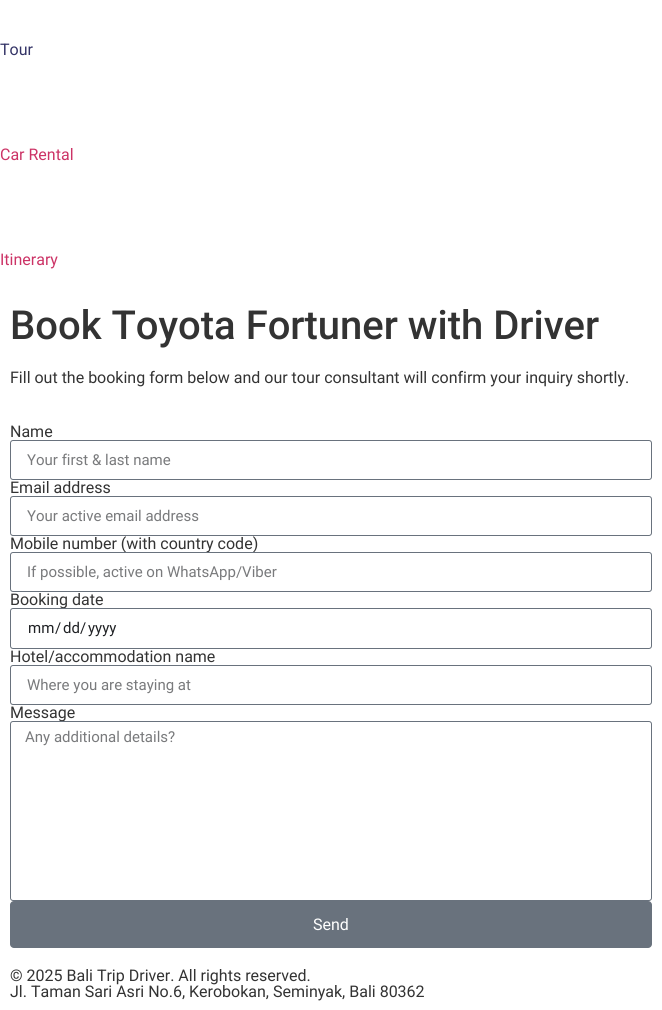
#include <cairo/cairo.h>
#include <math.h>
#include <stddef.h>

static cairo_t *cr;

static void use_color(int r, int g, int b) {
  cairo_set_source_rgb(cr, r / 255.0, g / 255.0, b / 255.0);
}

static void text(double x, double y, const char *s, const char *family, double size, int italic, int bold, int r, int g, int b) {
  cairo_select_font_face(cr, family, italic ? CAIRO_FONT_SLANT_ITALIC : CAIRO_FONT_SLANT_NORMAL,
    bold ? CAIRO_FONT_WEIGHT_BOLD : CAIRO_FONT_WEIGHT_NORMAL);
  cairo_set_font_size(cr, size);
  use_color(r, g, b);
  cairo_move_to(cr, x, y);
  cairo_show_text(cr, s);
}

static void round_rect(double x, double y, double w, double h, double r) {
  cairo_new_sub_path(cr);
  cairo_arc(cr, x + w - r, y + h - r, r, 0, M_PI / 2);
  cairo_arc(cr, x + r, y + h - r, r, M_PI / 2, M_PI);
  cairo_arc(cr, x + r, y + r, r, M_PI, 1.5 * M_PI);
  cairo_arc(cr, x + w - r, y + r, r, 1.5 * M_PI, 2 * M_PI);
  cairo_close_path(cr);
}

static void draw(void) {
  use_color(255, 255, 255);
  cairo_paint(cr);
  round_rect(10.5, 440.5, 641, 39, 2.5);
  use_color(105, 114, 125);
  cairo_set_line_width(cr, 1);
  cairo_stroke(cr);
  round_rect(10.5, 496.5, 641, 39, 2.5);
  cairo_stroke(cr);
  round_rect(10.5, 665.5, 641, 39, 2.5);
  cairo_stroke(cr);
  round_rect(10, 901, 642, 47, 4);
  cairo_fill(cr);
  text(0, 55, "Tour", "Roboto", 16, 0, 0, 51, 51, 102);
  text(0, 160, "Car Rental", "Roboto", 16, 0, 0, 204, 51, 102);
  text(0, 265, "Itinerary", "Roboto", 16, 0, 0, 204, 51, 102);
  text(10, 339, "Book Toyota Fortuner with Driver", "Roboto Medium", 40, 0, 0, 51, 51, 51);
  text(10, 383, "Fill out the booking form below and our tour consultant will confirm your inquiry shortly.", "Roboto", 16, 0, 0, 51, 51, 51);
  text(10, 437, "Name", "Roboto", 16, 0, 0, 51, 51, 51);
  text(27, 465, "Your first & last name", "Roboto", 15, 0, 0, 121, 122, 124);
  text(10, 493, "Email address", "Roboto", 16, 0, 0, 51, 51, 51);
  text(27, 521, "Your active email address", "Roboto", 15, 0, 0, 121, 122, 124);
  text(10, 549, "Mobile number (with country code)", "Roboto", 16, 0, 0, 51, 51, 51);
  round_rect(10.5, 552.5, 641, 39, 2.5);
  use_color(105, 114, 125);
  cairo_stroke(cr);
  text(27, 577, "If possible, active on WhatsApp/Viber", "Roboto", 15, 0, 0, 121, 122, 124);
  text(10, 605, "Booking date", "Roboto", 16, 0, 0, 51, 51, 51);
  round_rect(10.5, 608.5, 641, 40, 2.5);
  use_color(105, 114, 125);
  cairo_stroke(cr);
  text(28, 633, "mm", "Roboto", 15, 0, 0, 31, 33, 36);
  text(55, 633, "/", "Roboto", 15, 0, 0, 31, 33, 36);
  text(63, 633, "dd", "Roboto", 15, 0, 0, 31, 33, 36);
  text(80, 633, "/", "Roboto", 15, 0, 0, 31, 33, 36);
  text(88, 633, "yyyy", "Roboto", 15, 0, 0, 31, 33, 36);
  text(10, 662, "Hotel/accommodation name", "Roboto", 16, 0, 0, 51, 51, 51);
  text(27, 690, "Where you are staying at", "Roboto", 15, 0, 0, 121, 122, 124);
  text(10, 718, "Message", "Roboto", 16, 0, 0, 51, 51, 51);
  round_rect(10.5, 721.5, 641, 179, 2.5);
  use_color(105, 114, 125);
  cairo_stroke(cr);
  text(25, 742, "Any additional details?", "Roboto", 15, 0, 0, 121, 122, 124);
  text(313, 930, "Send", "Roboto", 16, 0, 0, 255, 255, 255);
  text(10, 981, "© 2025 Bali Trip Driver. All rights reserved.", "Roboto", 16, 0, 0, 51, 51, 51);
  text(10, 997, "Jl. Taman Sari Asri No.6, Kerobokan, Seminyak, Bali 80362", "Roboto", 16, 0, 0, 51, 51, 51);
}

int main(void) {
  cairo_surface_t *surface = cairo_image_surface_create(CAIRO_FORMAT_RGB24, 662, 1010);
  cr = cairo_create(surface);
  cairo_font_options_t *options = cairo_font_options_create();
  cairo_font_options_set_hint_metrics(options, CAIRO_HINT_METRICS_OFF);
  cairo_font_options_set_hint_style(options, CAIRO_HINT_STYLE_NONE);
  cairo_set_font_options(cr, options);
  cairo_set_miter_limit(cr, 4);
  draw();
  cairo_surface_write_to_png(surface, "out.png");
  cairo_font_options_destroy(options);
  cairo_destroy(cr);
  cairo_surface_destroy(surface);
  return 0;
}
